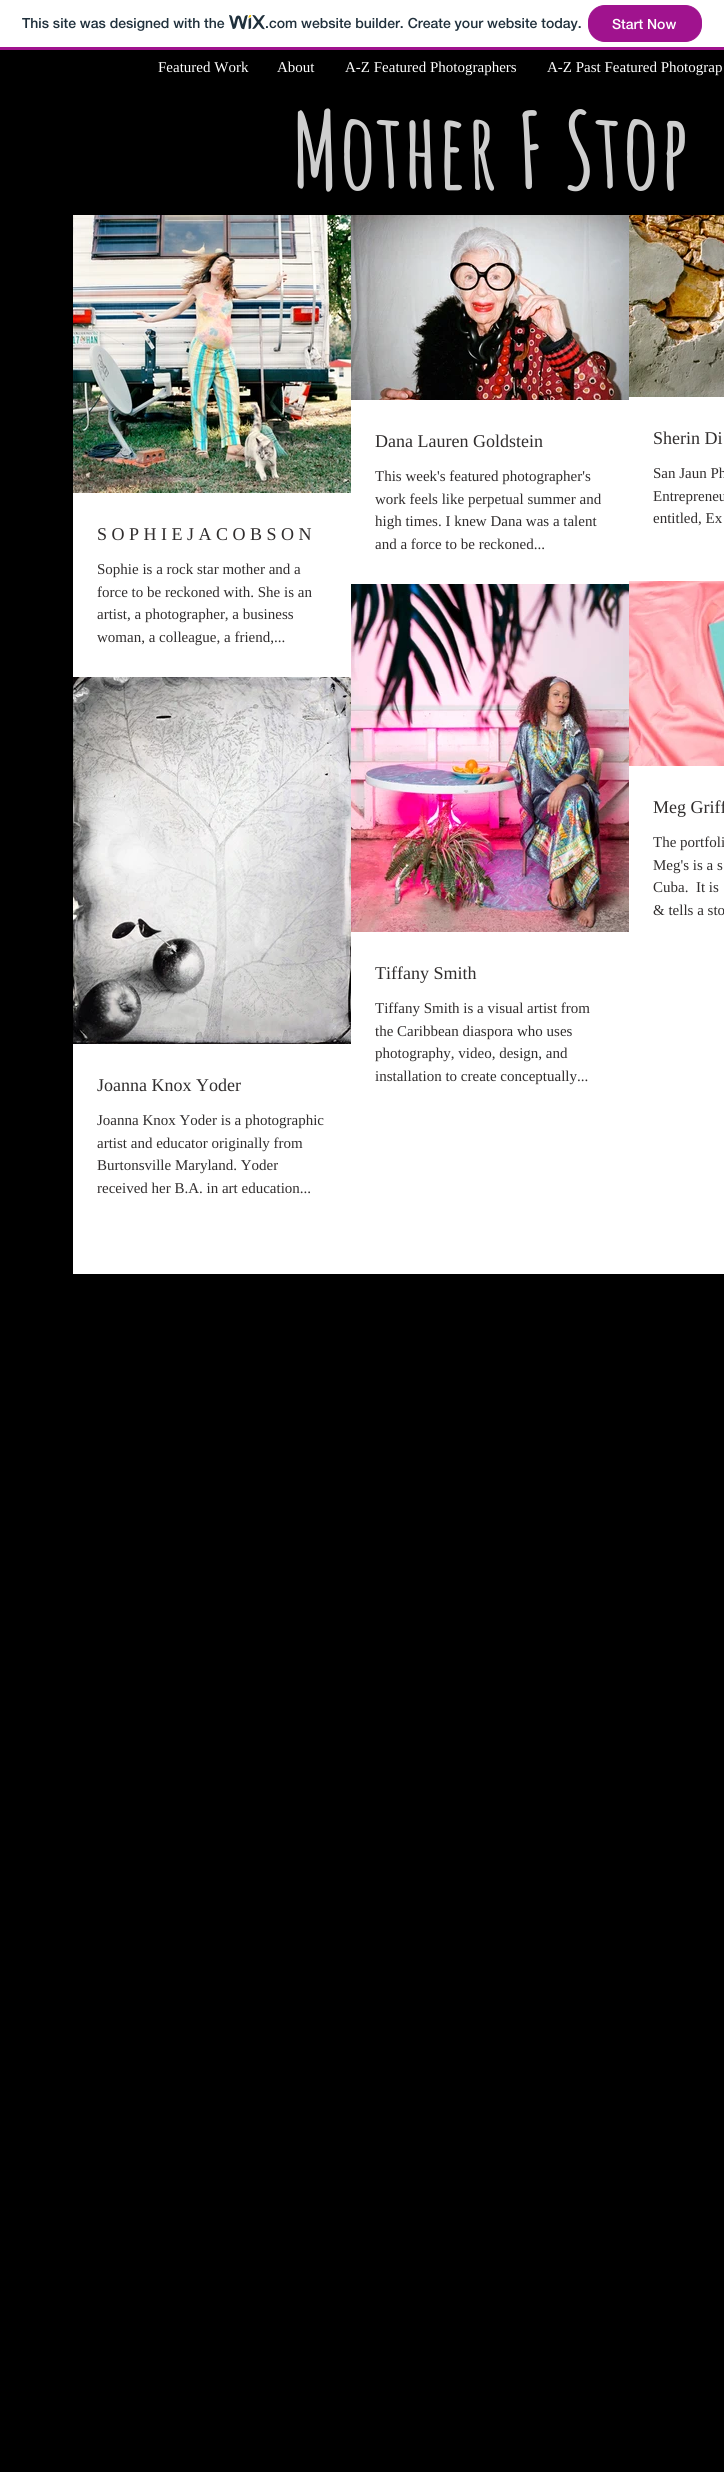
#include <cairo/cairo.h>
#include <math.h>
#include <stddef.h>

static cairo_t *cr;

static void use_color(int r, int g, int b) {
  cairo_set_source_rgb(cr, r / 255.0, g / 255.0, b / 255.0);
}

static void text(double x, double y, const char *s, const char *family, double size, int italic, int bold, int r, int g, int b) {
  cairo_select_font_face(cr, family, italic ? CAIRO_FONT_SLANT_ITALIC : CAIRO_FONT_SLANT_NORMAL,
    bold ? CAIRO_FONT_WEIGHT_BOLD : CAIRO_FONT_WEIGHT_NORMAL);
  cairo_set_font_size(cr, size);
  use_color(r, g, b);
  cairo_move_to(cr, x, y);
  cairo_show_text(cr, s);
}

static void box(double x, double y, double w, double h, int r, int g, int b) {
  use_color(r, g, b);
  cairo_rectangle(cr, x, y, w, h);
  cairo_fill(cr);
}

static void round_rect(double x, double y, double w, double h, double r) {
  cairo_new_sub_path(cr);
  cairo_arc(cr, x + w - r, y + h - r, r, 0, M_PI / 2);
  cairo_arc(cr, x + r, y + h - r, r, M_PI / 2, M_PI);
  cairo_arc(cr, x + r, y + r, r, M_PI, 1.5 * M_PI);
  cairo_arc(cr, x + w - r, y + r, r, 1.5 * M_PI, 2 * M_PI);
  cairo_close_path(cr);
}

static void picture(const char *path, double x, double y, double w, double h) {
  cairo_surface_t *image = cairo_image_surface_create_from_png(path);
  cairo_save(cr);
  cairo_set_source_surface(cr, image, x, y);
  cairo_rectangle(cr, x, y, w, h);
  cairo_fill(cr);
  cairo_restore(cr);
  cairo_surface_destroy(image);
}

static void draw(void) {
  use_color(255, 255, 255);
  cairo_paint(cr);
  box(0, 47, 724, 3, 160, 19, 142);
  picture("img_01.png", 229, 15, 36, 15);
  round_rect(588.5, 5.5, 113, 36, 16.5);
  cairo_fill_preserve(cr);
  cairo_set_line_width(cr, 1);
  cairo_stroke(cr);
  box(0, 50, 724, 2422, 0, 0, 0);
  box(73, 397, 651, 877, 255, 255, 255);
  picture("img_02.png", 351, 215, 278, 185);
  picture("img_03.png", 629, 215, 95, 182);
  picture("img_04.png", 73, 215, 278, 278);
  picture("img_05.png", 629, 581, 95, 185);
  picture("img_06.png", 351, 584, 278, 348);
  picture("img_07.png", 73, 677, 278, 367);
  text(22, 28, "This site was designed with the", "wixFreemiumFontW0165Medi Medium", 14, 0, 0, 32, 48, 60);
  text(265, 28, ".com website builder. Create your website today.", "wixFreemiumFontW0165Medi Medium", 14, 0, 0, 32, 48, 60);
  text(612, 29, "Start Now", "wixFreemiumFontW0165Medi Medium", 14, 0, 0, 255, 255, 255);
  text(158, 72, "Featured Work", "Liberation Serif", 15, 0, 0, 255, 255, 255);
  text(277, 72, "About", "Liberation Serif", 15, 0, 0, 255, 255, 255);
  text(345, 72, "A-Z Featured Photographers", "Liberation Serif", 15, 0, 0, 255, 255, 255);
  text(547, 72, "A-Z Past Featured Photograp", "Liberation Serif", 15, 0, 0, 255, 255, 255);
  text(292, 189, "Mother F Stop", "Amatic SC", 104, 0, 1, 206, 206, 206);
  text(375, 447, "Dana Lauren Goldstein", "Liberation Serif", 18, 0, 0, 48, 45, 45);
  text(375, 481, "This week's featured photographer's", "Liberation Serif", 15, 0, 0, 48, 45, 45);
  text(375, 504, "work feels like perpetual summer and", "Liberation Serif", 15, 0, 0, 48, 45, 45);
  text(375, 526, "high times. I knew Dana was a talent", "Liberation Serif", 15, 0, 0, 48, 45, 45);
  text(375, 549, "and a force to be reckoned...", "Liberation Serif", 15, 0, 0, 48, 45, 45);
  text(653, 444, "Sherin Di", "Liberation Serif", 18, 0, 0, 48, 45, 45);
  text(653, 478, "San Jaun Ph", "Liberation Serif", 15, 0, 0, 48, 45, 45);
  text(653, 501, "Entrepreneu", "Liberation Serif", 15, 0, 0, 48, 45, 45);
  text(653, 523, "entitled, Ex", "Liberation Serif", 15, 0, 0, 48, 45, 45);
  text(97, 540, "S O P H I E J A C O B S O N", "Liberation Serif", 18, 0, 0, 48, 45, 45);
  text(97, 574, "Sophie is a rock star mother and a", "Liberation Serif", 15, 0, 0, 48, 45, 45);
  text(97, 597, "force to be reckoned with. She is an", "Liberation Serif", 15, 0, 0, 48, 45, 45);
  text(97, 619, "artist, a photographer, a business", "Liberation Serif", 15, 0, 0, 48, 45, 45);
  text(97, 642, "woman, a colleague, a friend,...", "Liberation Serif", 15, 0, 0, 48, 45, 45);
  text(653, 813, "Meg Griff", "Liberation Serif", 18, 0, 0, 48, 45, 45);
  text(653, 847, "The portfoli", "Liberation Serif", 15, 0, 0, 48, 45, 45);
  text(653, 870, "Meg's is a s", "Liberation Serif", 15, 0, 0, 48, 45, 45);
  text(653, 892, "Cuba.  It is", "Liberation Serif", 15, 0, 0, 48, 45, 45);
  text(653, 915, "& tells a sto", "Liberation Serif", 15, 0, 0, 48, 45, 45);
  text(375, 979, "Tiffany Smith", "Liberation Serif", 18, 0, 0, 48, 45, 45);
  text(375, 1013, "Tiffany Smith is a visual artist from", "Liberation Serif", 15, 0, 0, 48, 45, 45);
  text(375, 1036, "the Caribbean diaspora who uses", "Liberation Serif", 15, 0, 0, 48, 45, 45);
  text(375, 1058, "photography, video, design, and", "Liberation Serif", 15, 0, 0, 48, 45, 45);
  text(375, 1081, "installation to create conceptually...", "Liberation Serif", 15, 0, 0, 48, 45, 45);
  text(97, 1091, "Joanna Knox Yoder", "Liberation Serif", 18, 0, 0, 48, 45, 45);
  text(97, 1125, "Joanna Knox Yoder is a photographic", "Liberation Serif", 15, 0, 0, 48, 45, 45);
  text(97, 1148, "artist and educator originally from", "Liberation Serif", 15, 0, 0, 48, 45, 45);
  text(97, 1170, "Burtonsville Maryland. Yoder", "Liberation Serif", 15, 0, 0, 48, 45, 45);
  text(97, 1193, "received her B.A. in art education...", "Liberation Serif", 15, 0, 0, 48, 45, 45);
}

int main(void) {
  cairo_surface_t *surface = cairo_image_surface_create(CAIRO_FORMAT_RGB24, 724, 2472);
  cr = cairo_create(surface);
  cairo_font_options_t *options = cairo_font_options_create();
  cairo_font_options_set_hint_metrics(options, CAIRO_HINT_METRICS_OFF);
  cairo_font_options_set_hint_style(options, CAIRO_HINT_STYLE_NONE);
  cairo_set_font_options(cr, options);
  cairo_set_miter_limit(cr, 4);
  draw();
  cairo_surface_write_to_png(surface, "out.png");
  cairo_font_options_destroy(options);
  cairo_destroy(cr);
  cairo_surface_destroy(surface);
  return 0;
}
